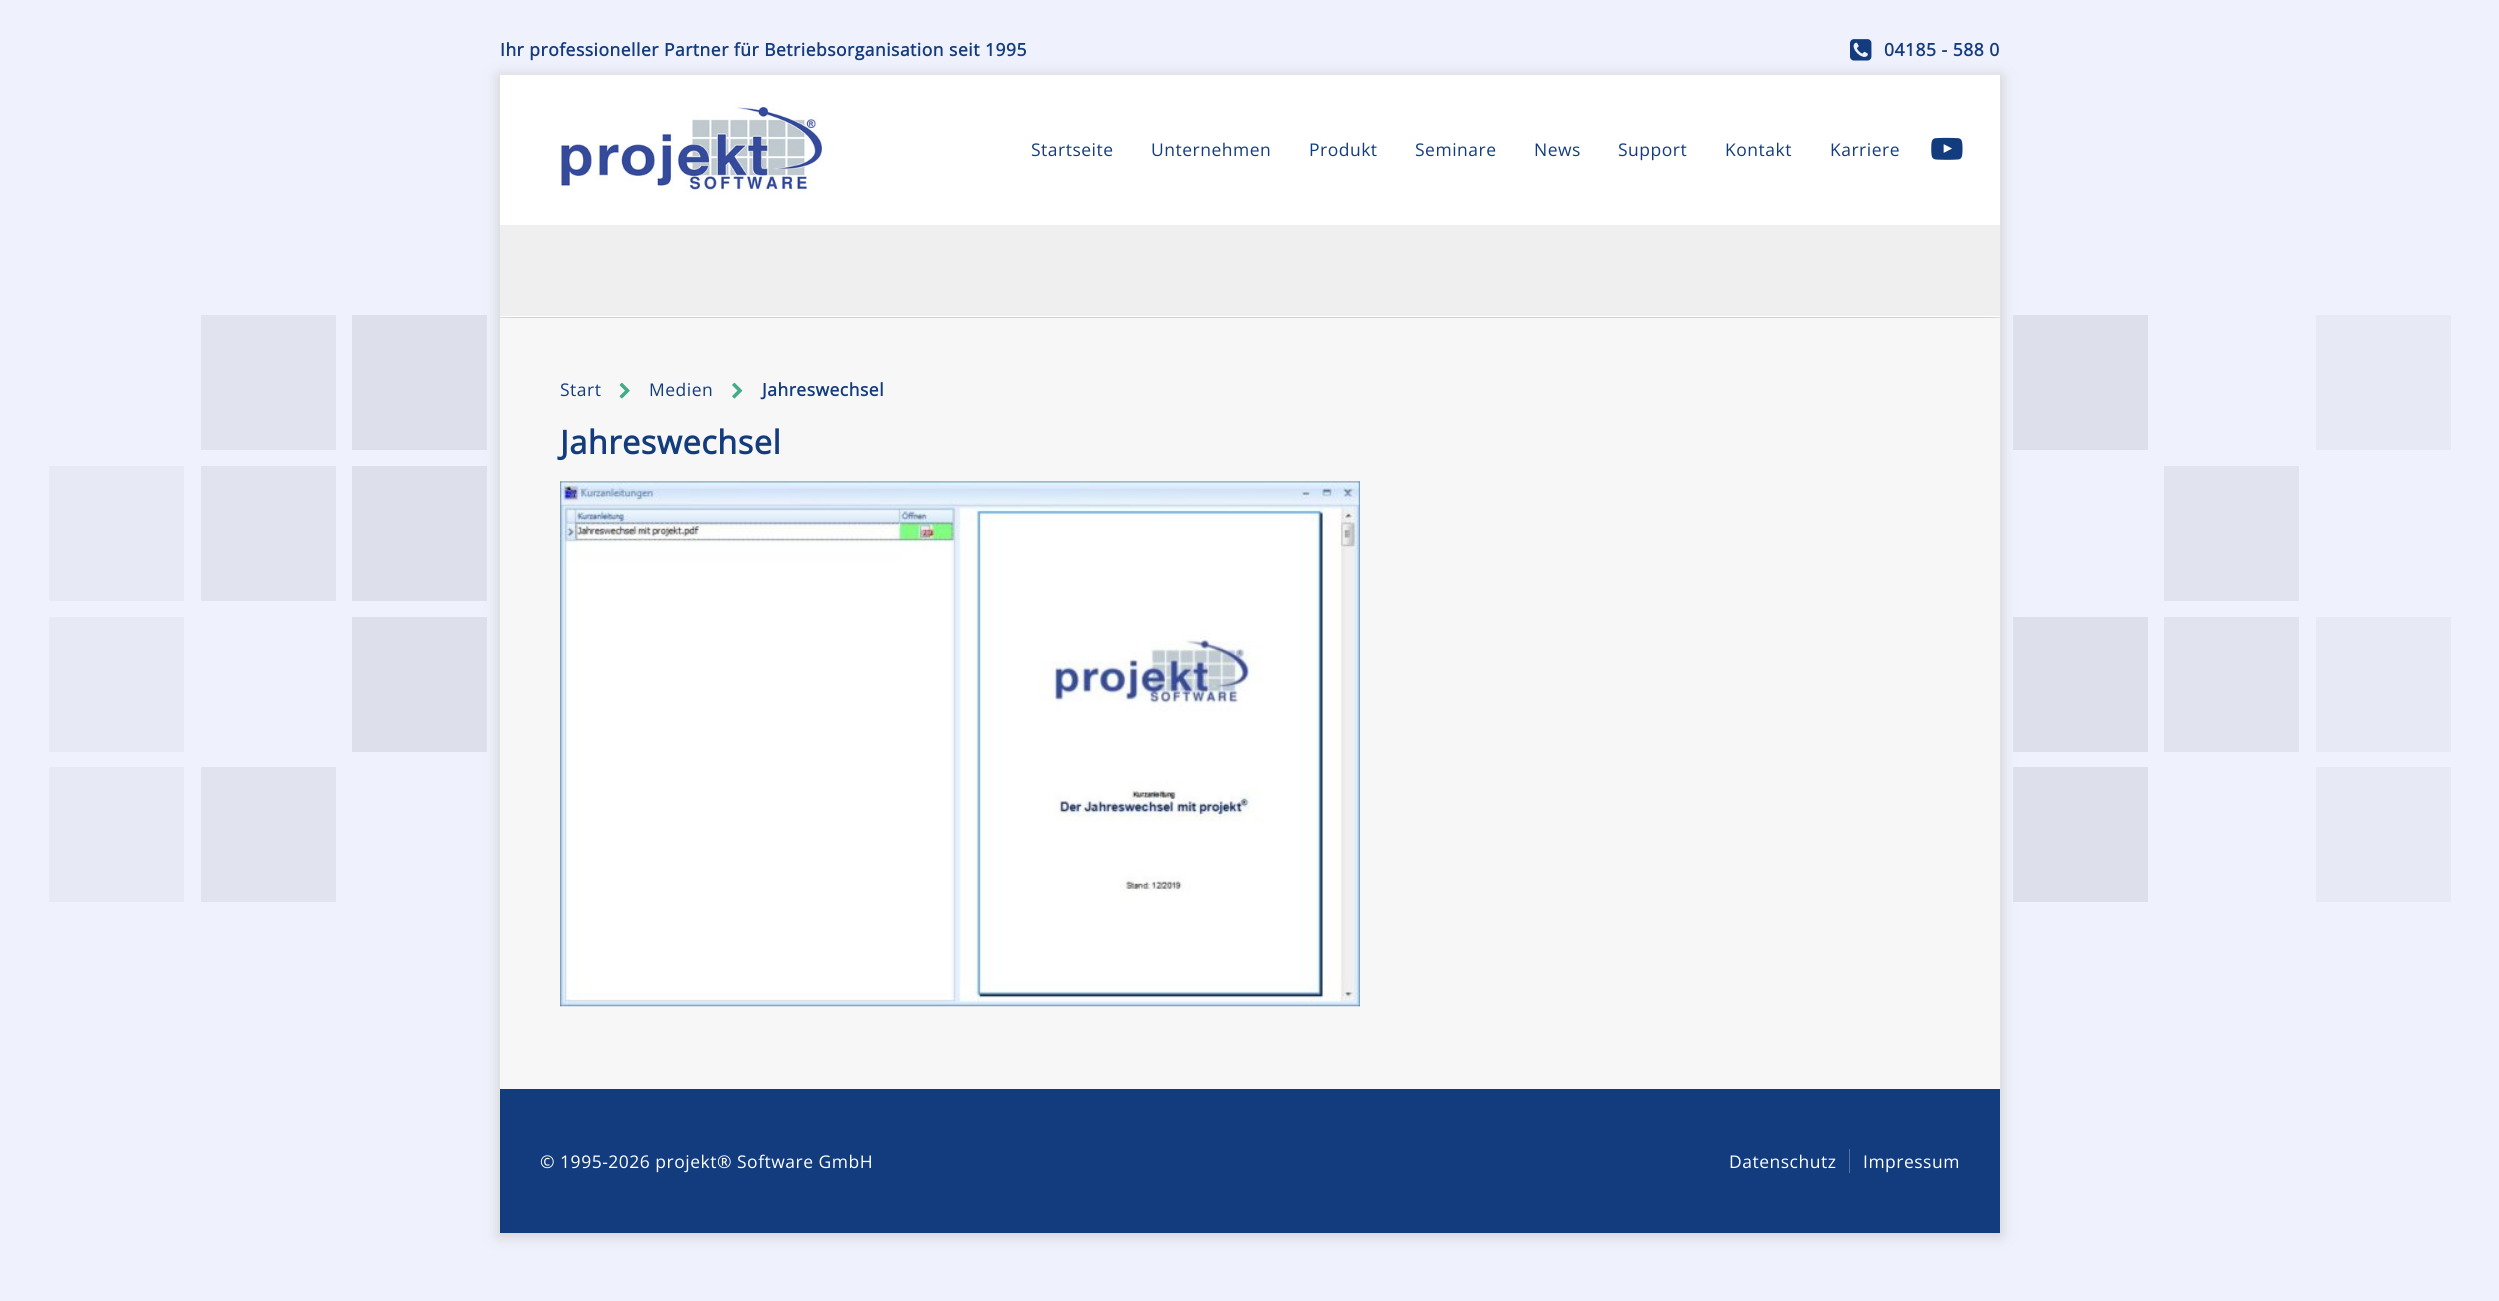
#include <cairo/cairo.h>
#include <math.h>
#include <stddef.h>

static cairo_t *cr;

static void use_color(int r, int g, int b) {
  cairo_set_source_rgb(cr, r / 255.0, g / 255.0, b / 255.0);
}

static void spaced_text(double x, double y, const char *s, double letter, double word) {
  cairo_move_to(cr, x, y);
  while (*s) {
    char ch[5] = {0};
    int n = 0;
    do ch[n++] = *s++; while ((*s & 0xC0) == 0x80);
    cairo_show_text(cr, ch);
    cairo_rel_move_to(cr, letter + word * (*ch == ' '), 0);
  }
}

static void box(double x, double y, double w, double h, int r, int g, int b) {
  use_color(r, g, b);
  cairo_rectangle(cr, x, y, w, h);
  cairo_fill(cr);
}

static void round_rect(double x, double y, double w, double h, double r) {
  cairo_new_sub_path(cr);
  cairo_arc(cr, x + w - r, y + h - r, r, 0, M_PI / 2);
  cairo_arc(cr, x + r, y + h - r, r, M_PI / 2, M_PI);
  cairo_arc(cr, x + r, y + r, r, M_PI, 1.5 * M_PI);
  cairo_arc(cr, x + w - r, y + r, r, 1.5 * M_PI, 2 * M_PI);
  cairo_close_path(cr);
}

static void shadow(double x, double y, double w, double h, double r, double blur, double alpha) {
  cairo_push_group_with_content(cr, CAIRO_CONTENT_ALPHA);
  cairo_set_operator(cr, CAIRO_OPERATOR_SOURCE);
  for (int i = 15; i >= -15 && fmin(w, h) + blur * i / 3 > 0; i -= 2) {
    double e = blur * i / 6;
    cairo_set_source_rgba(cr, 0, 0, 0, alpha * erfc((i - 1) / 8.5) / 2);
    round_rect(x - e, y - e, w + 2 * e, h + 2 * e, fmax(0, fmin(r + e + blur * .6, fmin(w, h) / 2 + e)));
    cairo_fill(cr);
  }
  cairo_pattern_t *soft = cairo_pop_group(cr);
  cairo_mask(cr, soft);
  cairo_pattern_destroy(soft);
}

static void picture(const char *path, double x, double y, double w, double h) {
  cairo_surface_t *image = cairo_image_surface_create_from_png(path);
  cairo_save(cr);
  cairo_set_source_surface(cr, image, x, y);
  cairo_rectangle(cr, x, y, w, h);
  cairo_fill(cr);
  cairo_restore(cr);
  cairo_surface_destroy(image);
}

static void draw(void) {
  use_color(239, 241, 253);
  cairo_paint(cr);
  use_color(208, 208, 208);
  shadow(499, 76, 1502, 1160, 0, 7.5, 1);
  picture("img_01.png", 1850, 39, 22, 22);
  box(500, 75, 1500, 150, 255, 255, 255);
  picture("img_02.png", 560, 102, 264, 91);
  picture("img_03.png", 1931, 137, 32, 23);
  box(500, 225, 1500, 91, 239, 239, 239);
  box(500, 316, 1500, 1, 255, 255, 255);
  box(500, 318, 1500, 771, 247, 247, 247);
  box(352, 315, 135, 135, 221, 223, 234);
  box(352, 466, 135, 135, 221, 223, 234);
  box(352, 617, 135, 135, 221, 223, 234);
  box(201, 315, 135, 135, 225, 227, 238);
  box(201, 466, 135, 135, 225, 227, 238);
  box(201, 767, 135, 135, 225, 227, 238);
  box(49, 466, 135, 135, 231, 233, 244);
  box(49, 617, 135, 135, 231, 233, 244);
  box(49, 767, 135, 135, 231, 233, 244);
  picture("img_04.png", 619, 382, 11, 17);
  picture("img_05.png", 732, 382, 11, 17);
  box(2316, 315, 135, 135, 231, 233, 244);
  box(2316, 617, 135, 135, 231, 233, 244);
  box(2316, 767, 135, 135, 231, 233, 244);
  box(2164, 466, 135, 135, 225, 227, 238);
  box(2164, 617, 135, 135, 225, 227, 238);
  box(2013, 315, 135, 135, 221, 223, 234);
  box(2013, 617, 135, 135, 221, 223, 234);
  box(2013, 767, 135, 135, 221, 223, 234);
  picture("img_06.png", 560, 481, 800, 526);
  box(500, 1089, 1500, 144, 19, 60, 126);
  box(1849, 1149, 1, 24, 85, 115, 162);
  cairo_select_font_face(cr, "Open Sans", CAIRO_FONT_SLANT_NORMAL, CAIRO_FONT_WEIGHT_BOLD);
  cairo_set_font_size(cr, 17.5);
  use_color(19, 60, 126);
  spaced_text(500, 56, "Ihr professioneller Partner für Betriebsorganisation seit 1995", 0.5, 0);
  spaced_text(1884, 56, "04185 - 588 0", 0.5, 0);
  cairo_select_font_face(cr, "Open Sans", CAIRO_FONT_SLANT_NORMAL, CAIRO_FONT_WEIGHT_NORMAL);
  spaced_text(1031, 156, "Startseite", 0.5, 0);
  spaced_text(1151, 156, "Unternehmen", 0.5, 0);
  spaced_text(1309, 156, "Produkt", 0.5, 0);
  spaced_text(1415, 156, "Seminare", 0.5, 0);
  spaced_text(1534, 156, "News", 0.5, 0);
  spaced_text(1618, 156, "Support", 0.5, 0);
  spaced_text(1725, 156, "Kontakt", 0.5, 0);
  spaced_text(1830, 156, "Karriere", 0.5, 0);
  spaced_text(560, 396, "Start", 0.5, 0);
  spaced_text(649, 396, "Medien", 0.5, 0);
  cairo_select_font_face(cr, "Open Sans", CAIRO_FONT_SLANT_NORMAL, CAIRO_FONT_WEIGHT_BOLD);
  spaced_text(762, 396, "Jahreswechsel", 0.5, 0);
  cairo_set_font_size(cr, 32.5);
  spaced_text(560, 454, "Jahreswechsel", 0.5, 0);
  cairo_select_font_face(cr, "Open Sans", CAIRO_FONT_SLANT_NORMAL, CAIRO_FONT_WEIGHT_NORMAL);
  cairo_set_font_size(cr, 17.5);
  use_color(255, 255, 255);
  spaced_text(540, 1168, "© 1995-2026 projekt® Software GmbH", 0.5, 0);
  spaced_text(1729, 1168, "Datenschutz", 0.5, 0);
  spaced_text(1863, 1168, "Impressum", 0.5, 0);
}

int main(void) {
  cairo_surface_t *surface = cairo_image_surface_create(CAIRO_FORMAT_RGB24, 2499, 1301);
  cr = cairo_create(surface);
  cairo_font_options_t *options = cairo_font_options_create();
  cairo_font_options_set_hint_metrics(options, CAIRO_HINT_METRICS_OFF);
  cairo_font_options_set_hint_style(options, CAIRO_HINT_STYLE_NONE);
  cairo_set_font_options(cr, options);
  cairo_set_miter_limit(cr, 4);
  draw();
  cairo_surface_write_to_png(surface, "out.png");
  cairo_font_options_destroy(options);
  cairo_destroy(cr);
  cairo_surface_destroy(surface);
  return 0;
}
